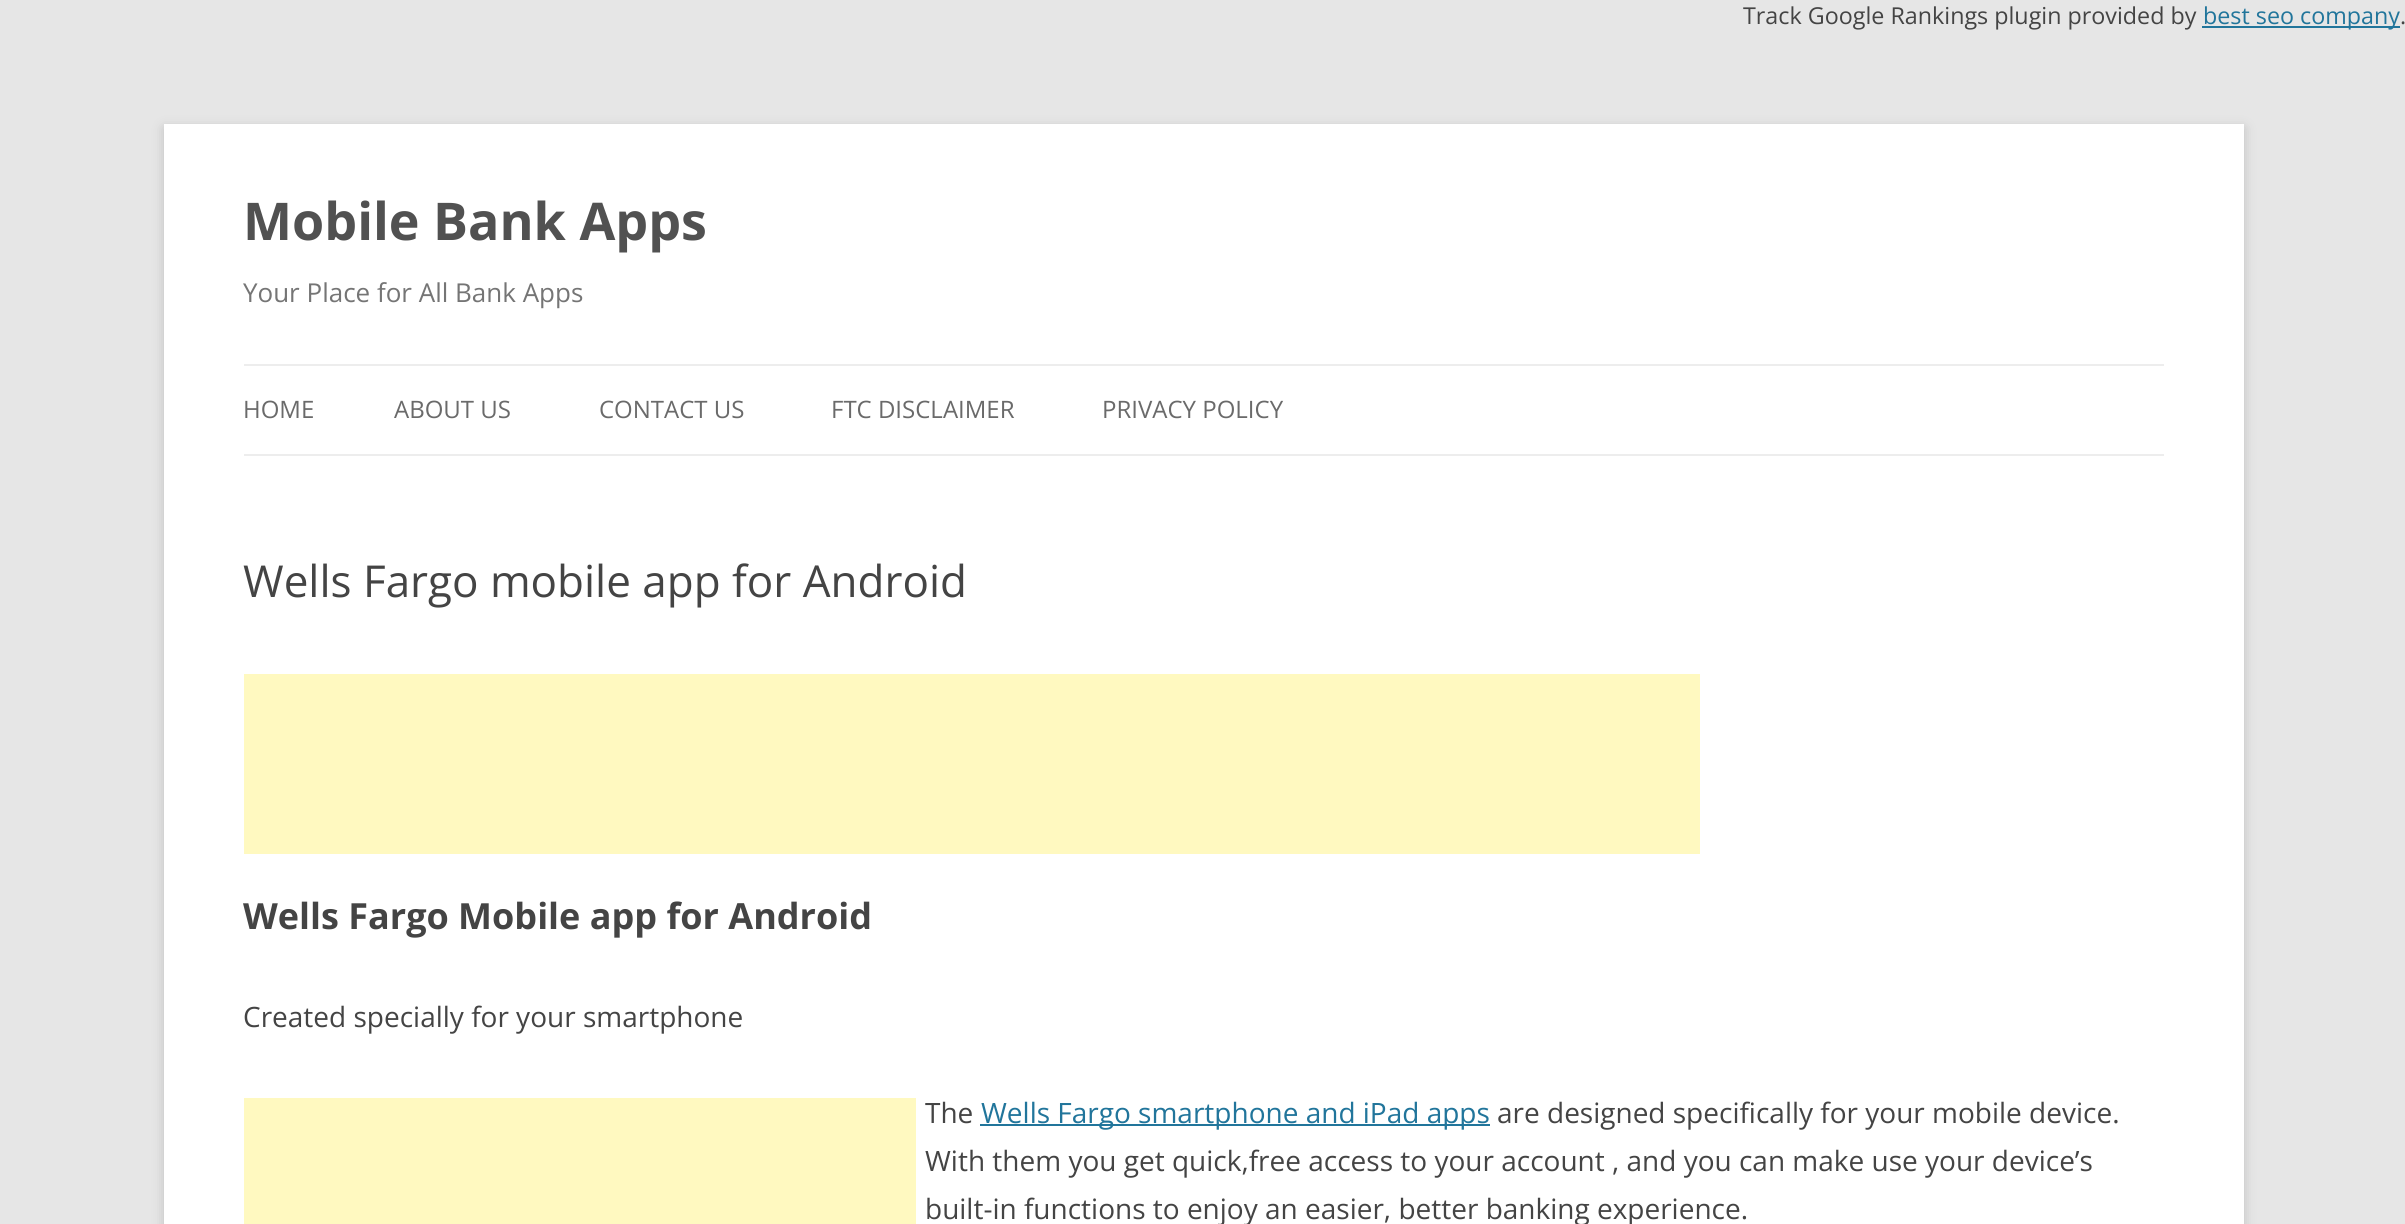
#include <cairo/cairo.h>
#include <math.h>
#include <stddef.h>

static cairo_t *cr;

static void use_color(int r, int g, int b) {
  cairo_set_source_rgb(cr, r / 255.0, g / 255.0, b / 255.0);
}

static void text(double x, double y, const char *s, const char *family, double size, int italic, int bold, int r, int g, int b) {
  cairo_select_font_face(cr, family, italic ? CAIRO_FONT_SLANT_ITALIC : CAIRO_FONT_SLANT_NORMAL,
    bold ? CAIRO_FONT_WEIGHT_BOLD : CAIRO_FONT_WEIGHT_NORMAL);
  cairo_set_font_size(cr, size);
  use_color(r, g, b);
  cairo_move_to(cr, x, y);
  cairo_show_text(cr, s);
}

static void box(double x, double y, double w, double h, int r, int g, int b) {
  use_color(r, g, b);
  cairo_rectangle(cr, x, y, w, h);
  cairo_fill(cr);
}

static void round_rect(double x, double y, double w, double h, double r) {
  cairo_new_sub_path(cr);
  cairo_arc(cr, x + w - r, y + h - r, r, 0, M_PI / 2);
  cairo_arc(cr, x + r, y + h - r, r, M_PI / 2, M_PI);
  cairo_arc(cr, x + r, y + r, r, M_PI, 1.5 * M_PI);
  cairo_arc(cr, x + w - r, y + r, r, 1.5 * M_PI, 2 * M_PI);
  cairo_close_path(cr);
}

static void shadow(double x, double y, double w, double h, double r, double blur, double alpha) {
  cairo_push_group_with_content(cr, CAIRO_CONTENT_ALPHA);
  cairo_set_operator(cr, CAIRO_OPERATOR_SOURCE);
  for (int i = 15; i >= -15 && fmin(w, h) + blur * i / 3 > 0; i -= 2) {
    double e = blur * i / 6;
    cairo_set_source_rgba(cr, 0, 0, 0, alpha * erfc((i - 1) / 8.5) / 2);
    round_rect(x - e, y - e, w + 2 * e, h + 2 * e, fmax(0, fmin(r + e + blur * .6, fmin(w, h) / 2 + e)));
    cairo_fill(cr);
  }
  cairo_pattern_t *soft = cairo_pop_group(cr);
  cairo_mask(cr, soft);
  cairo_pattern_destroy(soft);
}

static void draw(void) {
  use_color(230, 230, 230);
  cairo_paint(cr);
  box(2202, 26, 198, 2, 33, 117, 155);
  use_color(100, 100, 100);
  shadow(164, 128, 2080, 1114, 0, 6, 0.3);
  box(164, 124, 2080, 1100, 255, 255, 255);
  box(244, 364, 1920, 2, 237, 237, 237);
  box(244, 454, 1920, 2, 237, 237, 237);
  box(244, 674, 1456, 180, 255, 249, 192);
  box(244, 1098, 672, 126, 255, 249, 192);
  box(980, 1124, 510, 2, 33, 117, 155);
  text(1743, 24, "Track Google Rankings plugin provided by", "Open Sans", 23.3, 0, 0, 68, 68, 68);
  text(2203, 24, "best seo company", "Open Sans", 23.3, 0, 0, 33, 117, 155);
  text(2400, 24, ".", "Open Sans", 23.3, 0, 0, 68, 68, 68);
  text(243, 240, "Mobile Bank Apps", "Open Sans", 52, 0, 1, 81, 81, 81);
  text(243, 302, "Your Place for All Bank Apps", "Open Sans", 26, 0, 0, 117, 117, 117);
  text(243, 418, "HOME", "Open Sans", 24, 0, 0, 106, 106, 106);
  text(394, 418, "ABOUT US", "Open Sans", 24, 0, 0, 106, 106, 106);
  text(599, 418, "CONTACT US", "Open Sans", 24, 0, 0, 106, 106, 106);
  text(831, 418, "FTC DISCLAIMER", "Open Sans", 24, 0, 0, 106, 106, 106);
  text(1102, 418, "PRIVACY POLICY", "Open Sans", 24, 0, 0, 106, 106, 106);
  text(243, 597, "Wells Fargo mobile app for Android", "Open Sans", 44, 0, 0, 68, 68, 68);
  text(243, 929, "Wells Fargo Mobile app for Android", "Open Sans", 36, 0, 1, 68, 68, 68);
  text(243, 1027, "Created specially for your smartphone", "Open Sans", 28, 0, 0, 68, 68, 68);
  text(925, 1123, "The", "Open Sans", 28, 0, 0, 68, 68, 68);
  text(981, 1123, "Wells Fargo smartphone and iPad apps", "Open Sans", 28, 0, 0, 33, 117, 155);
  text(1497, 1123, "are designed specifically for your mobile device.", "Open Sans", 28, 0, 0, 68, 68, 68);
  text(925, 1171, "With them you get quick,free access to your account , and you can make use your device’s", "Open Sans", 28, 0, 0, 68, 68, 68);
  text(925, 1219, "built-in functions to enjoy an easier, better banking experience.", "Open Sans", 28, 0, 0, 68, 68, 68);
}

int main(void) {
  cairo_surface_t *surface = cairo_image_surface_create(CAIRO_FORMAT_RGB24, 2405, 1224);
  cr = cairo_create(surface);
  cairo_font_options_t *options = cairo_font_options_create();
  cairo_font_options_set_hint_metrics(options, CAIRO_HINT_METRICS_OFF);
  cairo_font_options_set_hint_style(options, CAIRO_HINT_STYLE_NONE);
  cairo_set_font_options(cr, options);
  cairo_set_miter_limit(cr, 4);
  draw();
  cairo_surface_write_to_png(surface, "out.png");
  cairo_font_options_destroy(options);
  cairo_destroy(cr);
  cairo_surface_destroy(surface);
  return 0;
}
